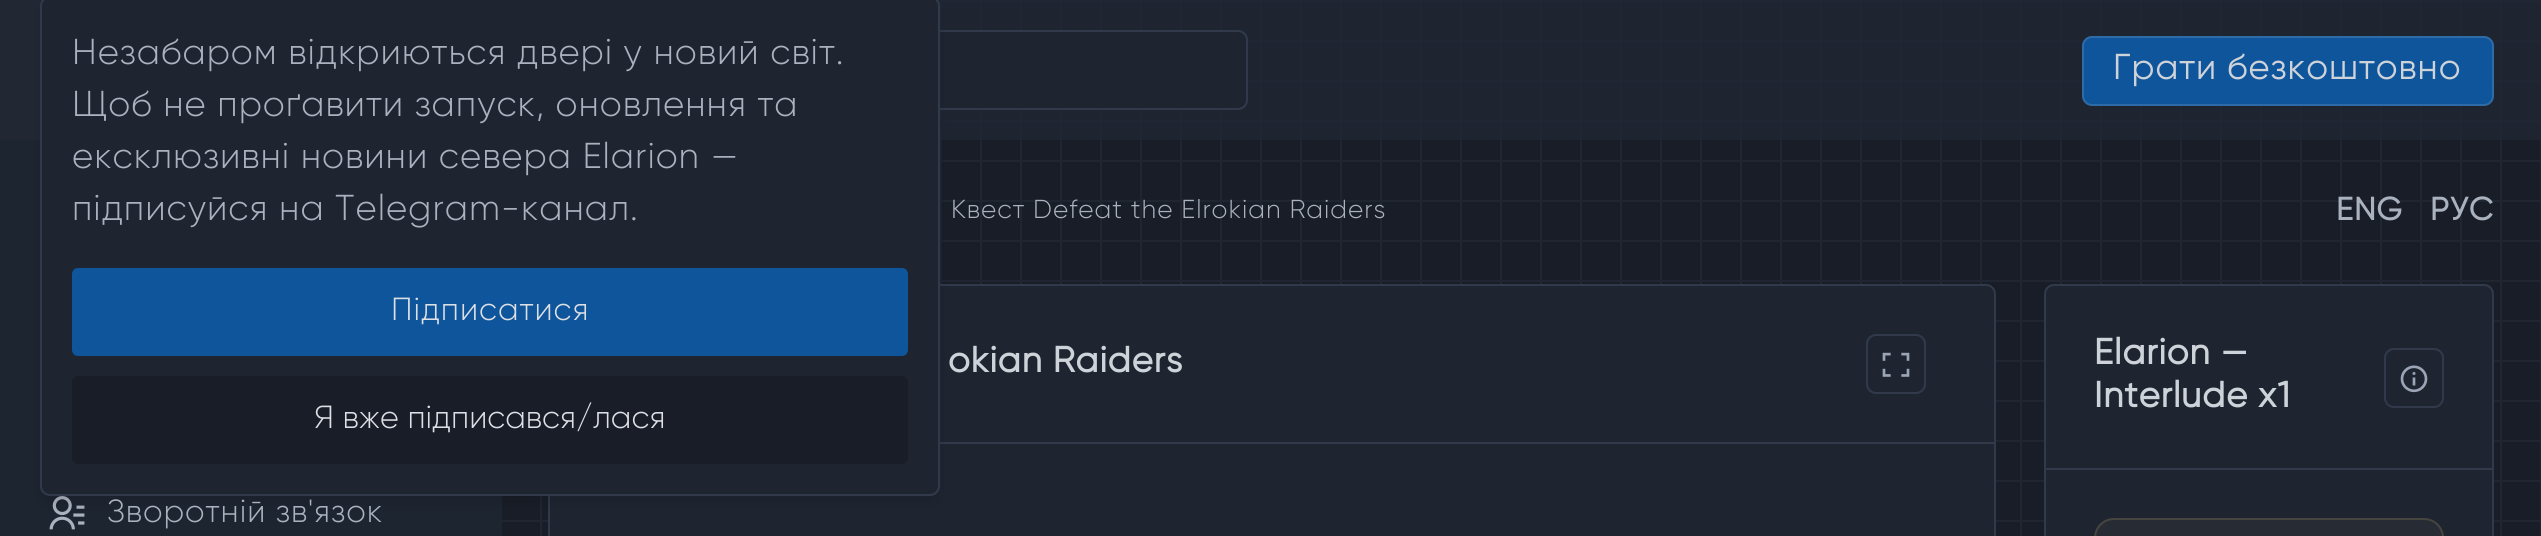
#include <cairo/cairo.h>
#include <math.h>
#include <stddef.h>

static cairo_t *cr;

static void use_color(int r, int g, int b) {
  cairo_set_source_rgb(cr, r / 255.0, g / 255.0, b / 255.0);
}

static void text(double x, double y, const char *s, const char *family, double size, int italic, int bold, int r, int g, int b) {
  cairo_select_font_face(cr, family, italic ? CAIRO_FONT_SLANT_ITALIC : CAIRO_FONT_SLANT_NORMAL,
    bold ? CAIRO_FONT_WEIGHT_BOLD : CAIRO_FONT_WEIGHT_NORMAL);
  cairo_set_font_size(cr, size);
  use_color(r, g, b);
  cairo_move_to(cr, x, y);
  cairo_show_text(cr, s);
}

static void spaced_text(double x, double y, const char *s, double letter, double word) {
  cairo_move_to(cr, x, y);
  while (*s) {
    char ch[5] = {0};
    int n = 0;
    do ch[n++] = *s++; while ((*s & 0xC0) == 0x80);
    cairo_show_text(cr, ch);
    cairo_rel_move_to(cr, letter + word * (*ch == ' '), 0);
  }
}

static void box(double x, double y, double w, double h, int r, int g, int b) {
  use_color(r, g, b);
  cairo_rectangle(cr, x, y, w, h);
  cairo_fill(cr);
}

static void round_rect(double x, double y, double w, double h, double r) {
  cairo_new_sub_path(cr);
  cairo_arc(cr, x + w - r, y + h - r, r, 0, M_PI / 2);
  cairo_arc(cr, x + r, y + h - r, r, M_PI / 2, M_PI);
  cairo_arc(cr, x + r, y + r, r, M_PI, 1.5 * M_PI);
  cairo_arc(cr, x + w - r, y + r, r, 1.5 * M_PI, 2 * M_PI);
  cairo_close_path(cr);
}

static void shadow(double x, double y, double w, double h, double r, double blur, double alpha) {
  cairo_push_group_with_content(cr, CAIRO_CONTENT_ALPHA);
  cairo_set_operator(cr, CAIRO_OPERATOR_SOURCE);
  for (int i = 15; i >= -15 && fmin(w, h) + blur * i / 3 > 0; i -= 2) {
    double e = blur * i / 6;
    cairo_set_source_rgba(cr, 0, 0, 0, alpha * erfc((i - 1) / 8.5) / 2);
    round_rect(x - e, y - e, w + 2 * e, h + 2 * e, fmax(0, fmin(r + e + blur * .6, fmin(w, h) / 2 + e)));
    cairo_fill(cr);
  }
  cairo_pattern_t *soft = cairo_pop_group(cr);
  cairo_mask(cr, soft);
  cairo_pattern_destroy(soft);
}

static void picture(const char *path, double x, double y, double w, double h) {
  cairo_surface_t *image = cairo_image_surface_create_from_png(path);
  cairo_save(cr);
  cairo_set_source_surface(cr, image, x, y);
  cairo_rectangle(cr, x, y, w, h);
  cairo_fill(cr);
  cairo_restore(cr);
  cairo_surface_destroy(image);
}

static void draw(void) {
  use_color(255, 255, 255);
  cairo_paint(cr);
  picture("img_01.png", 500, 2, 2041, 534);
  box(938, 0, 1603, 2, 31, 37, 49);
  box(1248, 40, 1293, 2, 31, 37, 49);
  box(1248, 80, 1293, 2, 31, 37, 49);
  box(940, 120, 1601, 2, 31, 37, 49);
  cairo_set_source_rgba(cr, 0.133, 0.161, 0.208, 0.7);
  cairo_rectangle(cr, 938, 0, 1603, 140);
  cairo_fill(cr);
  use_color(30, 37, 49);
  round_rect(649, 31, 598, 78, 9);
  cairo_fill_preserve(cr);
  use_color(49, 58, 75);
  cairo_stroke(cr);
  box(940, 160, 1601, 2, 31, 37, 49);
  box(940, 200, 1601, 2, 31, 37, 49);
  box(940, 240, 1601, 2, 31, 37, 49);
  box(940, 280, 1601, 2, 31, 37, 49);
  box(500, 520, 2041, 2, 31, 37, 49);
  use_color(30, 37, 49);
  round_rect(549, 285, 1446, 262, 9);
  cairo_fill_preserve(cr);
  use_color(49, 58, 75);
  cairo_stroke(cr);
  box(940, 442, 1054, 2, 49, 58, 75);
  box(0, 140, 500, 396, 29, 37, 49);
  box(0, 0, 42, 140, 33, 40, 52);
  picture("img_04.png", 49, 496, 36, 34);
  use_color(0, 0, 0);
  shadow(40, 4, 900, 500, 10, 6, 0.1);
  use_color(30, 37, 49);
  round_rect(41, -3, 898, 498, 9);
  cairo_fill_preserve(cr);
  use_color(49, 58, 75);
  cairo_stroke(cr);
  use_color(14, 85, 155);
  round_rect(72, 268, 836, 88, 6);
  cairo_fill(cr);
  use_color(24, 29, 39);
  round_rect(72, 376, 836, 88, 6);
  cairo_fill(cr);
  use_color(14, 85, 155);
  round_rect(2083, 37, 410, 68, 9);
  cairo_fill_preserve(cr);
  use_color(47, 107, 167);
  cairo_stroke(cr);
  box(1996, 320, 545, 2, 31, 37, 49);
  box(1996, 360, 545, 2, 31, 37, 49);
  box(1996, 400, 545, 2, 31, 37, 49);
  box(1996, 440, 545, 2, 31, 37, 49);
  box(1996, 480, 545, 2, 31, 37, 49);
  round_rect(1867, 335, 58, 58, 9);
  use_color(49, 58, 75);
  cairo_stroke(cr);
  picture("img_02.png", 1882, 352, 28, 25);
  use_color(30, 37, 49);
  round_rect(2045, 285, 448, 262, 9);
  cairo_fill_preserve(cr);
  use_color(49, 58, 75);
  cairo_stroke(cr);
  box(2046, 468, 446, 2, 49, 58, 75);
  round_rect(2385, 349, 58, 58, 9);
  cairo_stroke(cr);
  picture("img_03.png", 2400, 365, 28, 28);
  use_color(39, 44, 52);
  round_rect(2094, 518, 350, 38, 20);
  cairo_fill(cr);
  round_rect(2095, 519, 348, 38, 19);
  cairo_set_source_rgba(cr, 0.969, 0.824, 0.478, 0.15);
  cairo_stroke(cr);
  cairo_select_font_face(cr, "Gilroy Light", CAIRO_FONT_SLANT_NORMAL, CAIRO_FONT_WEIGHT_NORMAL);
  cairo_set_font_size(cr, 36);
  use_color(170, 178, 191);
  spaced_text(72, 64, "Незабаром відкриються двері у новий світ.", 0.95, 0);
  spaced_text(72, 116, "Щоб не проґавити запуск, оновлення та", 0.95, 0);
  spaced_text(72, 168, "ексклюзивні новини севера Elarion —", 0.95, 0);
  spaced_text(72, 220, "підписуйся на Telegram-канал.", 0.95, 0);
  cairo_set_font_size(cr, 32);
  use_color(221, 224, 229);
  spaced_text(391, 320, "Підписатися", 0.95, 0);
  text(314, 428, "Я вже підписався/лася", "Gilroy Light", 32, 0, 0, 221, 224, 229);
  cairo_select_font_face(cr, "Gilroy", CAIRO_FONT_SLANT_NORMAL, CAIRO_FONT_WEIGHT_NORMAL);
  cairo_set_font_size(cr, 36);
  use_color(206, 210, 217);
  spaced_text(2113, 79, "Грати безкоштовно", 0.95, 0);
  cairo_select_font_face(cr, "Gilroy Light", CAIRO_FONT_SLANT_NORMAL, CAIRO_FONT_WEIGHT_NORMAL);
  cairo_set_font_size(cr, 26);
  use_color(170, 178, 191);
  spaced_text(951, 218, "Квест Defeat the Elrokian Raiders", 0.95, 0);
  cairo_select_font_face(cr, "Gilroy", CAIRO_FONT_SLANT_NORMAL, CAIRO_FONT_WEIGHT_BOLD);
  cairo_set_font_size(cr, 32);
  spaced_text(2336, 220, "ENG", 0.95, 0);
  spaced_text(2430, 220, "РУС", 0.95, 0);
  cairo_set_font_size(cr, 36);
  use_color(206, 210, 217);
  spaced_text(948, 372, "okian Raiders", 0.95, 0);
  spaced_text(2094, 364, "Elarion —", 0.95, 0);
  spaced_text(2094, 407, "Interlude x1", 0.95, 0);
  cairo_select_font_face(cr, "Gilroy Light", CAIRO_FONT_SLANT_NORMAL, CAIRO_FONT_WEIGHT_NORMAL);
  cairo_set_font_size(cr, 32);
  use_color(170, 178, 191);
  spaced_text(107, 522, "Зворотній зв'язок", 0.95, 0);
}

int main(void) {
  cairo_surface_t *surface = cairo_image_surface_create(CAIRO_FORMAT_RGB24, 2541, 536);
  cr = cairo_create(surface);
  cairo_font_options_t *options = cairo_font_options_create();
  cairo_font_options_set_hint_metrics(options, CAIRO_HINT_METRICS_OFF);
  cairo_font_options_set_hint_style(options, CAIRO_HINT_STYLE_NONE);
  cairo_set_font_options(cr, options);
  cairo_set_miter_limit(cr, 4);
  draw();
  cairo_surface_write_to_png(surface, "out.png");
  cairo_font_options_destroy(options);
  cairo_destroy(cr);
  cairo_surface_destroy(surface);
  return 0;
}
